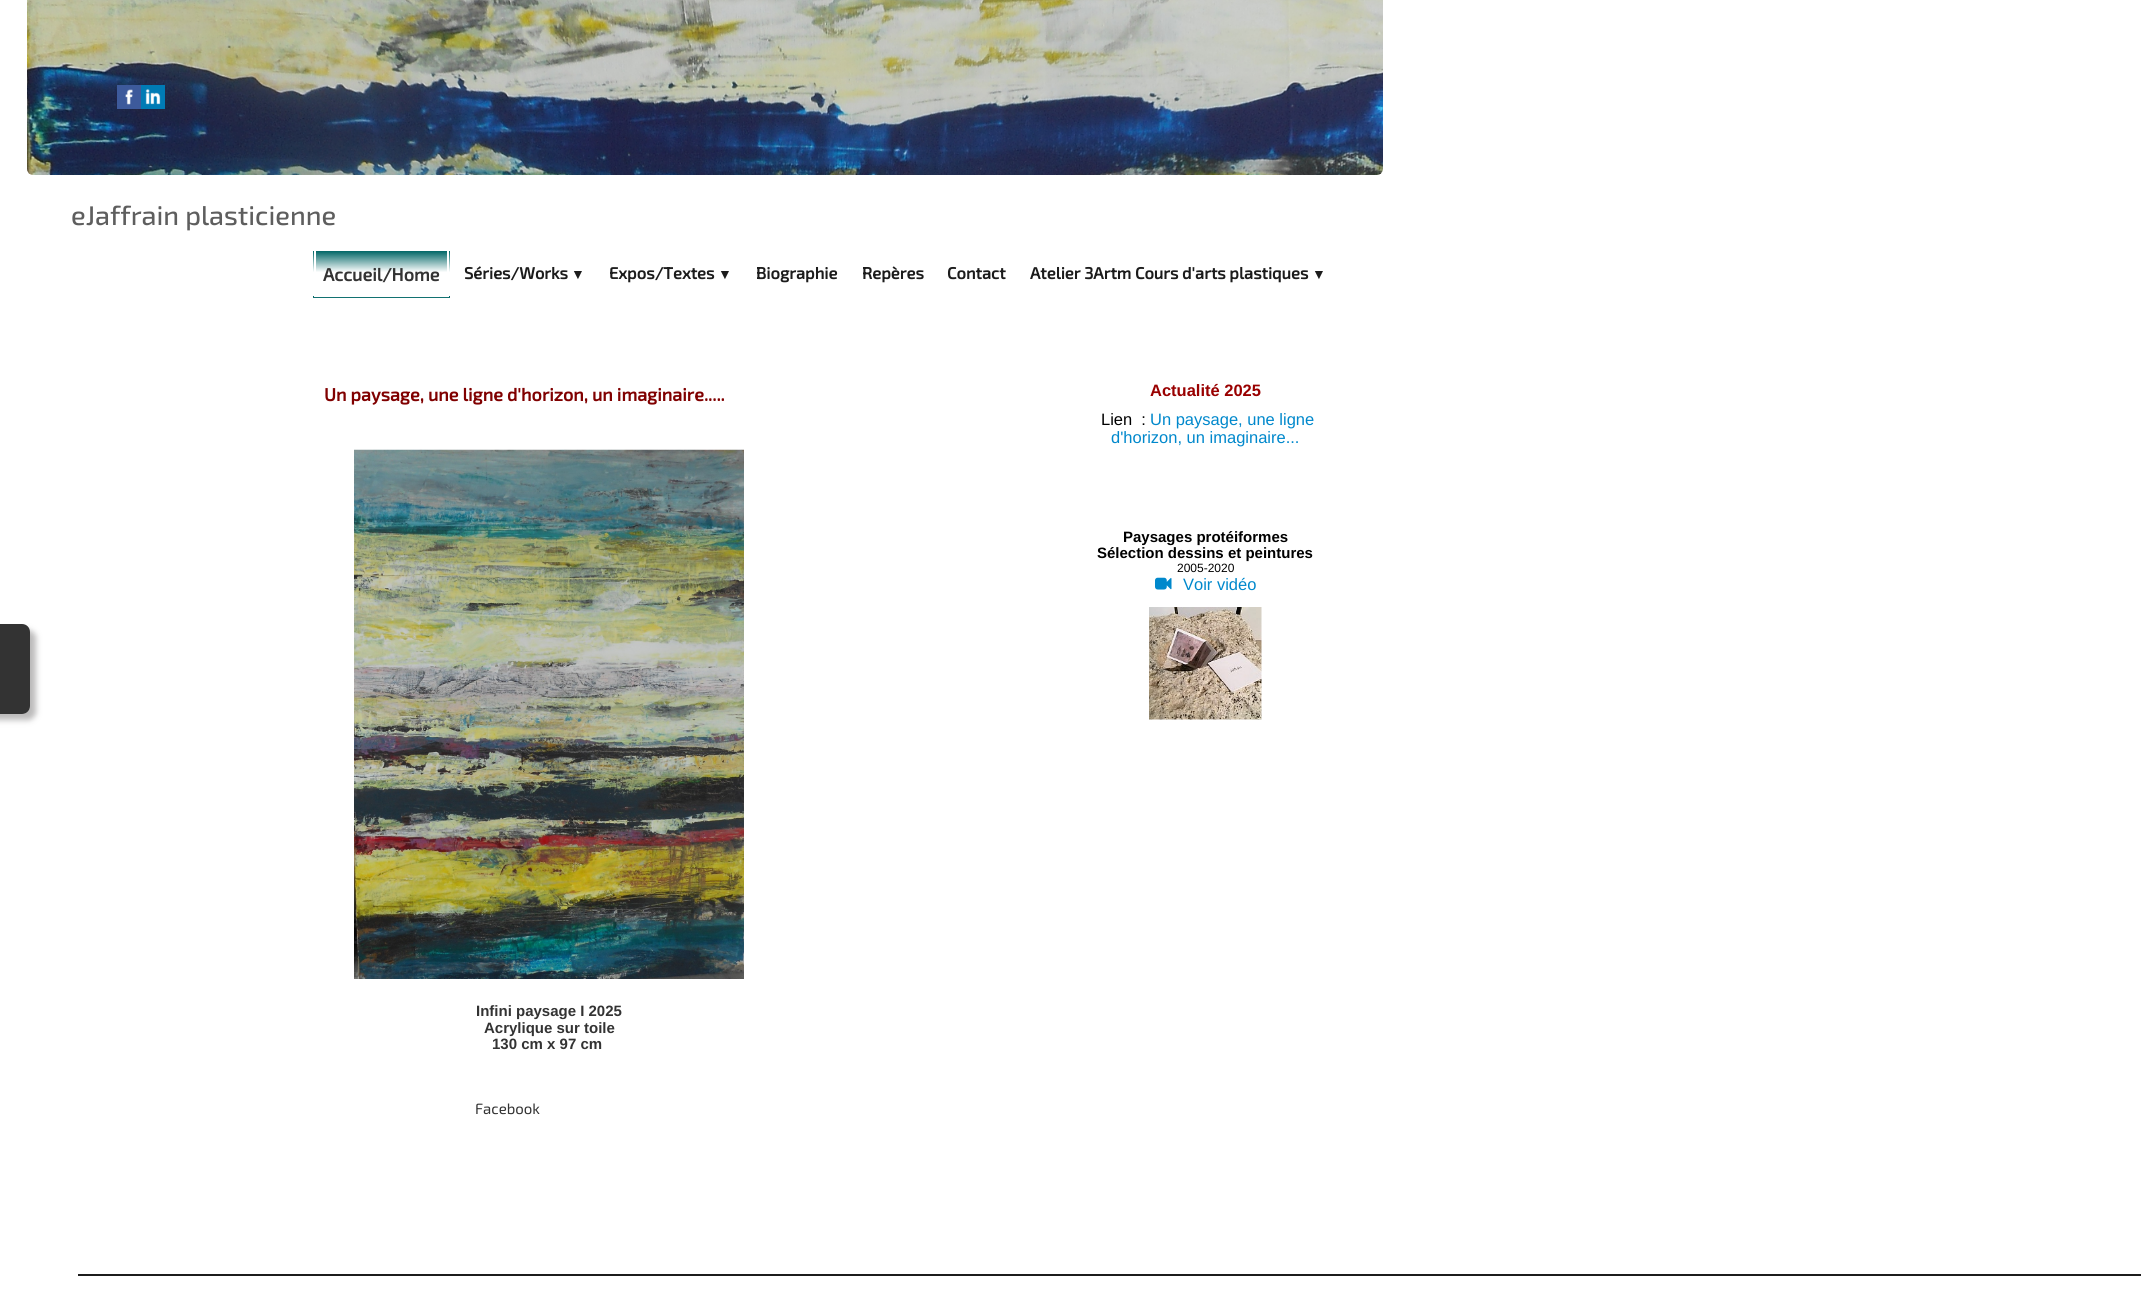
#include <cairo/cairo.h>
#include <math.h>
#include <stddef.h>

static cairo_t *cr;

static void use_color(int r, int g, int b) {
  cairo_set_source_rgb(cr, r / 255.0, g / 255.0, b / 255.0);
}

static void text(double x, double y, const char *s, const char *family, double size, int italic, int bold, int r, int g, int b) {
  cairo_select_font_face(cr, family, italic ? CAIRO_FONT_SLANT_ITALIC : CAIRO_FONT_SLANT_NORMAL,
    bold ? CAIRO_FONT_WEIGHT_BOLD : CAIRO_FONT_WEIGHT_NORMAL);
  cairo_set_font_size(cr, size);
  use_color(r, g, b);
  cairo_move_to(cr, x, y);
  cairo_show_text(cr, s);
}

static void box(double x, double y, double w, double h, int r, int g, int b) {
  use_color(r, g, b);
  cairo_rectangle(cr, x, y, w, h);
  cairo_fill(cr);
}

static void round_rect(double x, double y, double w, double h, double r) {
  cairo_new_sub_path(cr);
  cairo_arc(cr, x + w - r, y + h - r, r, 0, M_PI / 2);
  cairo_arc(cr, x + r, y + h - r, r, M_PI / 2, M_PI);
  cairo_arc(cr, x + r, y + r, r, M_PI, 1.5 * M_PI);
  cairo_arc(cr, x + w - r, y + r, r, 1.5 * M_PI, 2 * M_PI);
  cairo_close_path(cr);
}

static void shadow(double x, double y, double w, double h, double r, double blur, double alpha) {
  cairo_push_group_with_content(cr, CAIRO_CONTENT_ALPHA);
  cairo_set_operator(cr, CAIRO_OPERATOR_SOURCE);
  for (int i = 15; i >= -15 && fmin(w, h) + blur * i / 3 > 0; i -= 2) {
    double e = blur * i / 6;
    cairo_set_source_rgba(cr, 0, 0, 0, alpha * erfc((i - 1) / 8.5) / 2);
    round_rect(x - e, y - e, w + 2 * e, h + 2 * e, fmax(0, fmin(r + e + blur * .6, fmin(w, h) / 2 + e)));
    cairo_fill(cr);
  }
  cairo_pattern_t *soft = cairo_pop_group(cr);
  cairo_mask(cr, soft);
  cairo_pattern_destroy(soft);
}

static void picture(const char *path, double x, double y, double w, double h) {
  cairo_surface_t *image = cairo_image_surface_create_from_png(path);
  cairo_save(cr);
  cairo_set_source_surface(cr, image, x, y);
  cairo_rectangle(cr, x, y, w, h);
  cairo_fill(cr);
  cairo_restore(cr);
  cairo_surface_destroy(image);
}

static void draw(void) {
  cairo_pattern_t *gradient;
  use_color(255, 255, 255);
  cairo_paint(cr);
  cairo_save(cr);
  cairo_set_fill_rule(cr, CAIRO_FILL_RULE_EVEN_ODD);
  cairo_new_path(cr);
  cairo_move_to(cr, 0, 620);
  cairo_line_to(cr, 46, 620);
  cairo_line_to(cr, 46, 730);
  cairo_line_to(cr, 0, 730);
  cairo_close_path(cr);
  cairo_move_to(cr, -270, 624);
  cairo_line_to(cr, 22, 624);
  cairo_curve_to(cr, 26.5, 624, 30, 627.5, 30, 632);
  cairo_line_to(cr, 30, 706);
  cairo_curve_to(cr, 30, 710.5, 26.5, 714, 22, 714);
  cairo_line_to(cr, -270, 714);
  cairo_close_path(cr);
  cairo_clip(cr);
  use_color(121, 119, 119);
  shadow(-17, 630, 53, 90, 8, 3, 0.51);
  cairo_restore(cr);
  cairo_set_source_rgba(cr, 0, 0, 0, 0.8);
  cairo_new_path(cr);
  cairo_move_to(cr, -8, 624);
  cairo_line_to(cr, 22, 624);
  cairo_curve_to(cr, 26.5, 624, 30, 627.5, 30, 632);
  cairo_line_to(cr, 30, 706);
  cairo_curve_to(cr, 30, 710.5, 26.5, 714, 22, 714);
  cairo_line_to(cr, -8, 714);
  cairo_close_path(cr);
  cairo_fill(cr);
  picture("img_01.png", 27, 0, 1356, 175);
  picture("img_02.png", 117, 85, 24, 24);
  picture("img_03.png", 141, 85, 24, 24);
  gradient = cairo_pattern_create_linear(381, 251, 381, 296);
  cairo_pattern_add_color_stop_rgba(gradient, 0, 0, 0.4, 0.4, 1);
  cairo_pattern_add_color_stop_rgba(gradient, 0.47, 1, 1, 1, 1);
  cairo_pattern_add_color_stop_rgba(gradient, 1, 1, 1, 1, 1);
  cairo_set_source(cr, gradient);
  cairo_pattern_destroy(gradient);
  cairo_rectangle(cr, 313, 251, 137, 21);
  cairo_fill(cr);
  gradient = cairo_pattern_create_linear(381, 296, 381, 341);
  cairo_pattern_add_color_stop_rgba(gradient, 0, 0, 0.4, 0.4, 1);
  cairo_pattern_add_color_stop_rgba(gradient, 0.47, 1, 1, 1, 1);
  cairo_pattern_add_color_stop_rgba(gradient, 1, 1, 1, 1, 1);
  cairo_set_source(cr, gradient);
  cairo_pattern_destroy(gradient);
  cairo_rectangle(cr, 311, 296, 141, 2);
  cairo_fill(cr);
  cairo_rectangle(cr, 312, 247, 139, 52);
  use_color(255, 255, 255);
  cairo_stroke(cr);
  cairo_rectangle(cr, 315, 250, 133, 46);
  cairo_stroke(cr);
  picture("img_04.png", 354, 449, 390, 530);
  picture("img_05.png", 1155, 577, 17, 13);
  picture("img_06.png", 1149, 607, 113, 113);
  box(78, 1274, 2063, 2, 28, 28, 28);
  text(71, 225, "eJaffrain plasticienne", "Exo 2 Medium", 27, 0, 0, 94, 94, 94);
  text(323, 281, "Accueil/Home", "Exo 2", 18, 0, 1, 51, 51, 51);
  text(464, 279, "Séries/Works", "Exo 2", 16.5, 0, 1, 28, 28, 28);
  text(571, 279, "▼", "Liberation Serif", 14, 0, 1, 28, 28, 28);
  text(609, 279, "Expos/Textes", "Exo 2", 16.5, 0, 1, 28, 28, 28);
  text(718, 279, "▼", "Liberation Serif", 14, 0, 1, 28, 28, 28);
  text(756, 279, "Biographie", "Exo 2", 16.5, 0, 1, 28, 28, 28);
  text(862, 279, "Repères", "Exo 2", 16.5, 0, 1, 28, 28, 28);
  text(947, 279, "Contact", "Exo 2", 16.5, 0, 1, 28, 28, 28);
  text(1030, 279, "Atelier 3Artm Cours d'arts plastiques", "Exo 2", 16.5, 0, 1, 28, 28, 28);
  text(1312, 279, "▼", "Liberation Serif", 14, 0, 1, 28, 28, 28);
  text(324, 401, "Un paysage, une ligne d'horizon, un imaginaire.....", "Exo 2", 18, 0, 1, 128, 0, 0);
  text(476, 1016, "Infini paysage I 2025", "Liberation Sans", 15, 0, 1, 51, 51, 51);
  text(484, 1033, "Acrylique sur toile", "Liberation Sans", 15, 0, 1, 51, 51, 51);
  text(492, 1049, "130 cm x 97 cm", "Liberation Sans", 15, 0, 1, 51, 51, 51);
  text(475, 1114, "Facebook", "Exo 2", 15, 0, 0, 51, 51, 51);
  text(1150, 396, "Actualité 2025", "Liberation Sans", 16.5, 0, 1, 153, 0, 0);
  text(1101, 425, "Lien  :", "Liberation Sans", 16.5, 0, 0, 0, 0, 0);
  text(1150, 425, "Un paysage, une ligne", "Liberation Sans", 16.5, 0, 0, 0, 136, 204);
  text(1111, 443, "d'horizon, un imaginaire...", "Liberation Sans", 16.5, 0, 0, 0, 136, 204);
  text(1123, 542, "Paysages protéiformes", "Liberation Sans", 15, 0, 1, 0, 0, 0);
  text(1097, 558, "Sélection dessins et peintures", "Liberation Sans", 15, 0, 1, 0, 0, 0);
  text(1177, 572, "2005-2020", "Liberation Sans", 12, 0, 0, 0, 0, 0);
  text(1183, 590, "Voir vidéo", "Liberation Sans", 16.5, 0, 0, 0, 136, 204);
}

int main(void) {
  cairo_surface_t *surface = cairo_image_surface_create(CAIRO_FORMAT_RGB24, 2141, 1299);
  cr = cairo_create(surface);
  cairo_font_options_t *options = cairo_font_options_create();
  cairo_font_options_set_hint_metrics(options, CAIRO_HINT_METRICS_OFF);
  cairo_font_options_set_hint_style(options, CAIRO_HINT_STYLE_NONE);
  cairo_set_font_options(cr, options);
  cairo_set_miter_limit(cr, 4);
  draw();
  cairo_surface_write_to_png(surface, "out.png");
  cairo_font_options_destroy(options);
  cairo_destroy(cr);
  cairo_surface_destroy(surface);
  return 0;
}
